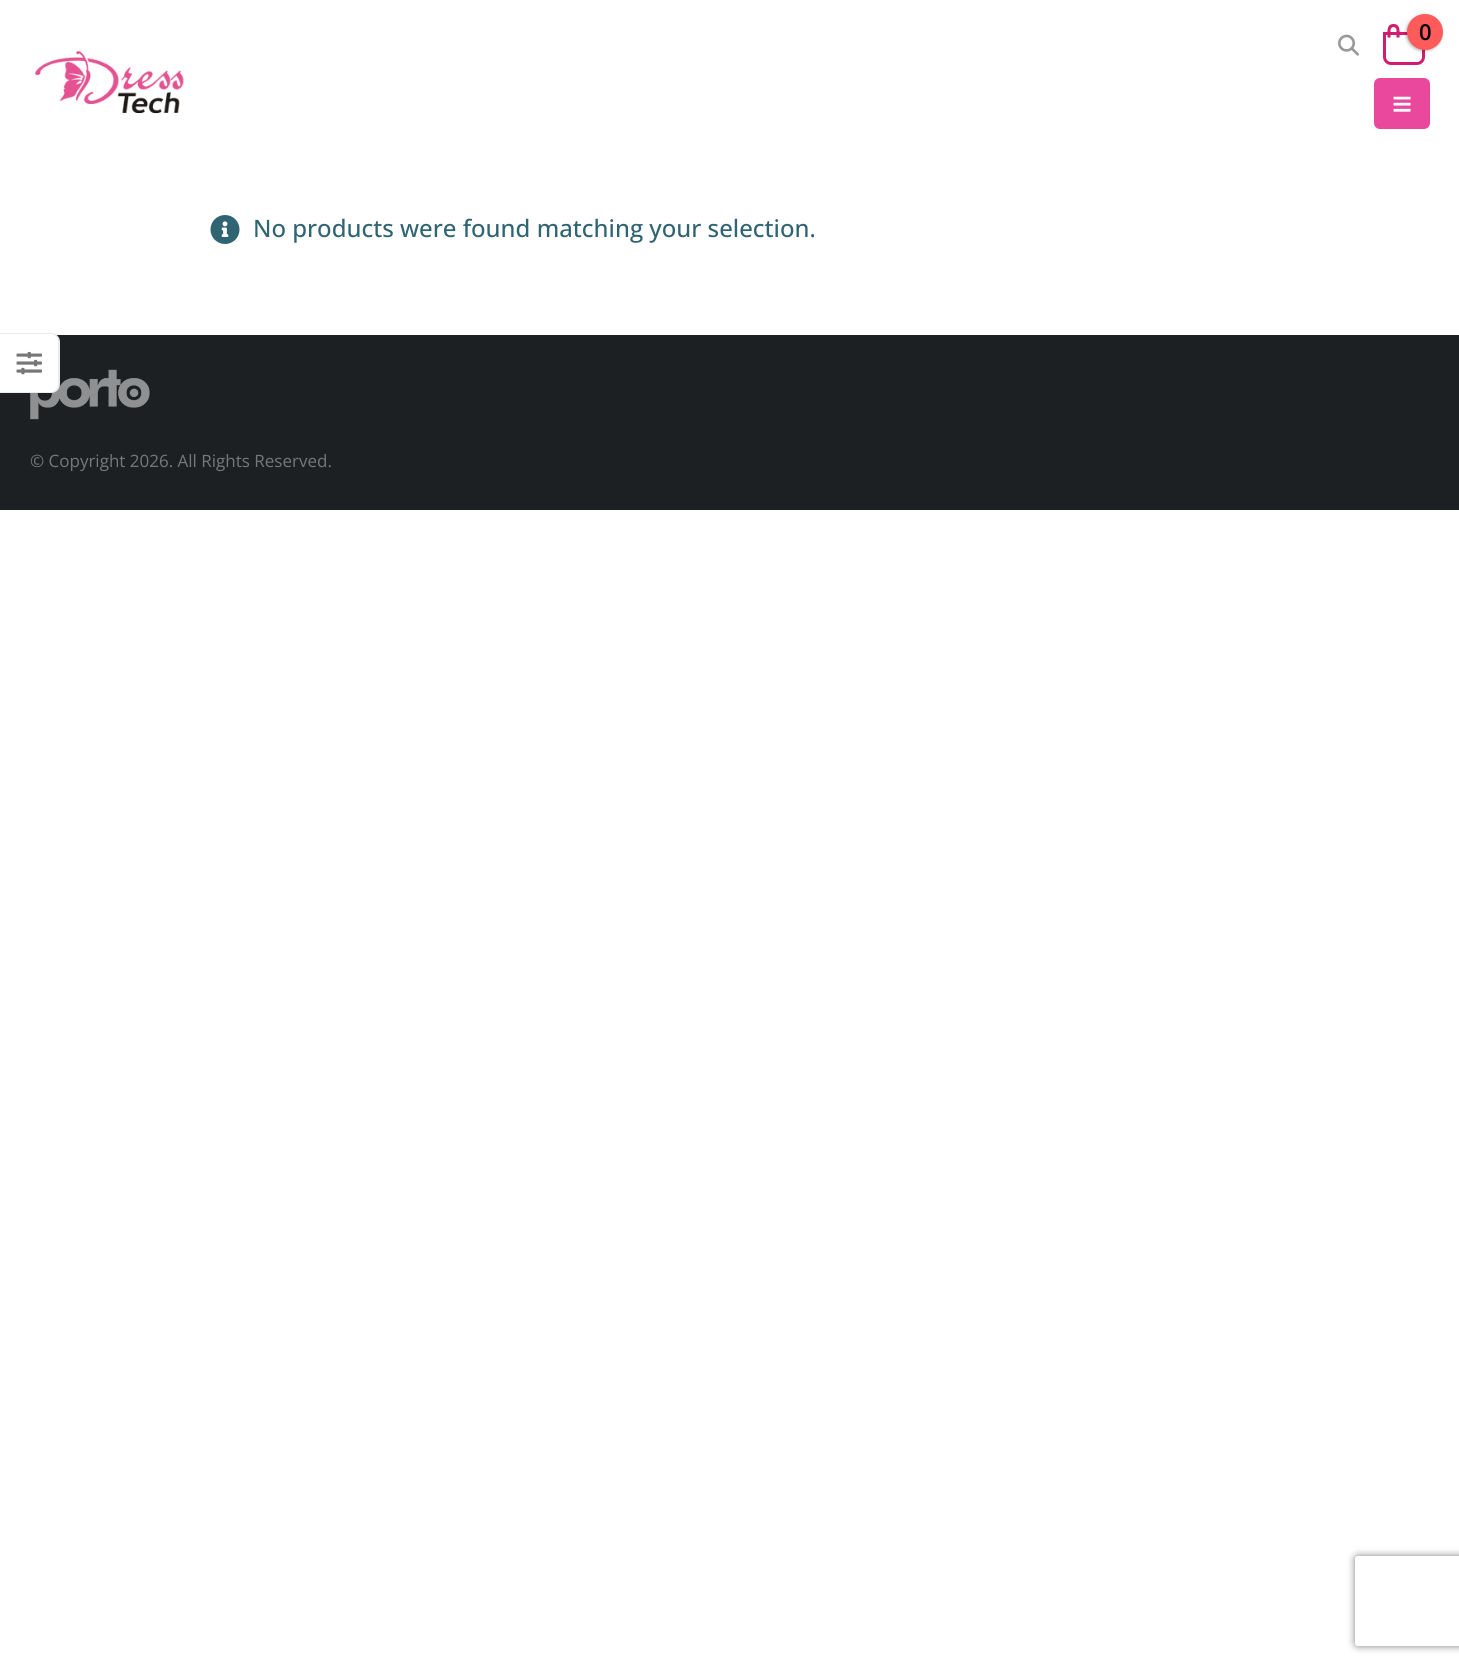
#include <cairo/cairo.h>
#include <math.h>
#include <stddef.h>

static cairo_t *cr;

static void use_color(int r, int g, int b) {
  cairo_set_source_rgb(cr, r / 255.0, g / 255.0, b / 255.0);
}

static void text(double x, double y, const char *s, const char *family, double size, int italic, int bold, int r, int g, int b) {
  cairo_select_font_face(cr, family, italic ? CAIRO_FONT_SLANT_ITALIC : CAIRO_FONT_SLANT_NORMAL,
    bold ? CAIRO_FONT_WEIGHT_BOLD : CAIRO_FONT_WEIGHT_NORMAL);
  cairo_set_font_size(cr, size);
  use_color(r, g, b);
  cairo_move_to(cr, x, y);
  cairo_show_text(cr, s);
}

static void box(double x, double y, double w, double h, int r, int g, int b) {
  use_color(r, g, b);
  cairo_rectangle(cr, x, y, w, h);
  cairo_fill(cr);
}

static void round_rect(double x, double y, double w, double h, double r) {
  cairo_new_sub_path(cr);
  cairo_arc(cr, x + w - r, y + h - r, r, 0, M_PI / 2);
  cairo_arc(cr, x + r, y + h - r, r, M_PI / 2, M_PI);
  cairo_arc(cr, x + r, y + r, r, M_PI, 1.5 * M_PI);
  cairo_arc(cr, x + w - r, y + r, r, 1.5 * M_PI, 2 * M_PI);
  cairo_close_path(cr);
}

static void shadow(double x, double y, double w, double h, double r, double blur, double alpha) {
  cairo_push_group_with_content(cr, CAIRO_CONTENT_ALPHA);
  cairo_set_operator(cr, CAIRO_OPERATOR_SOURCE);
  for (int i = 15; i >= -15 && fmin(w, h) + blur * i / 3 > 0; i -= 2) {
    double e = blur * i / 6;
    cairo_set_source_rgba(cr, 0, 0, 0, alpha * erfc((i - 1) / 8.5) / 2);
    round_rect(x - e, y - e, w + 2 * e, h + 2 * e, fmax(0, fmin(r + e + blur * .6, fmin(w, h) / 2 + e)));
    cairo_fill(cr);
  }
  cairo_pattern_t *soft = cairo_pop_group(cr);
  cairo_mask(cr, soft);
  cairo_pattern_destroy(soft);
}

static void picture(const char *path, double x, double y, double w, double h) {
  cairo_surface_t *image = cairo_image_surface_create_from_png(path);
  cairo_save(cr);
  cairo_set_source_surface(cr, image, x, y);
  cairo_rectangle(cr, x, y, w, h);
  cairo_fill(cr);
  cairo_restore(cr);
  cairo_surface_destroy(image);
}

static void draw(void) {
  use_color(255, 255, 255);
  cairo_paint(cr);
  cairo_new_path(cr);
  cairo_move_to(cr, 1384.5, 33.5);
  cairo_line_to(cr, 1423.5, 33.5);
  cairo_line_to(cr, 1423.5, 57);
  cairo_curve_to(cr, 1423.5, 60.5, 1420.5, 63.5, 1417, 63.5);
  cairo_line_to(cr, 1391, 63.5);
  cairo_curve_to(cr, 1387.5, 63.5, 1384.5, 60.5, 1384.5, 57);
  cairo_close_path(cr);
  use_color(209, 29, 110);
  cairo_set_line_width(cr, 3);
  cairo_stroke(cr);
  use_color(0, 0, 0);
  shadow(1406, 15, 36, 36, 18, 1.5, 0.3);
  use_color(255, 91, 91);
  cairo_arc(cr, 1425, 32, 18, 0, 2 * M_PI);
  cairo_fill(cr);
  use_color(209, 29, 110);
  cairo_set_fill_rule(cr, CAIRO_FILL_RULE_EVEN_ODD);
  cairo_new_path(cr);
  cairo_move_to(cr, 1393.5, 24);
  cairo_curve_to(cr, 1401, 24, 1399.5, 32.5, 1399.5, 37.5);
  cairo_line_to(cr, 1387.5, 37.5);
  cairo_curve_to(cr, 1387.5, 32.5, 1386, 24, 1393.5, 24);
  cairo_close_path(cr);
  cairo_move_to(cr, 1393.5, 27);
  cairo_curve_to(cr, 1395, 27, 1396.5, 28.5, 1396.5, 30);
  cairo_line_to(cr, 1396.5, 37.5);
  cairo_line_to(cr, 1390.5, 37.5);
  cairo_line_to(cr, 1390.5, 30);
  cairo_curve_to(cr, 1390.5, 28.5, 1392, 27, 1393.5, 27);
  cairo_close_path(cr);
  cairo_fill(cr);
  picture("img_01.png", 1338, 34, 21, 22);
  use_color(234, 72, 156);
  round_rect(1374, 78, 56, 51, 6);
  cairo_fill(cr);
  picture("img_02.png", 1393, 96, 18, 16);
  picture("img_03.png", 35, 51, 149, 63);
  picture("img_04.png", 210, 215, 30, 29);
  box(0, 335, 1459, 175, 28, 32, 35);
  picture("img_06.png", 30, 369, 120, 51);
  use_color(255, 255, 255);
  cairo_new_path(cr);
  cairo_move_to(cr, 0, 333);
  cairo_line_to(cr, 51, 333);
  cairo_curve_to(cr, 56, 333, 60, 337, 60, 342);
  cairo_line_to(cr, 60, 384);
  cairo_curve_to(cr, 60, 389, 56, 393, 51, 393);
  cairo_line_to(cr, 0, 393);
  cairo_close_path(cr);
  cairo_fill(cr);
  cairo_set_source_rgba(cr, 0, 0, 0, 0.08);
  cairo_new_path(cr);
  cairo_move_to(cr, 0, 333);
  cairo_line_to(cr, 51, 333);
  cairo_curve_to(cr, 56, 333, 60, 337, 60, 342);
  cairo_line_to(cr, 60, 384);
  cairo_curve_to(cr, 60, 389, 56, 393, 51, 393);
  cairo_line_to(cr, 0, 393);
  cairo_close_path(cr);
  cairo_move_to(cr, 0, 334);
  cairo_line_to(cr, 51, 334);
  cairo_curve_to(cr, 55, 334, 58, 338, 58, 342);
  cairo_line_to(cr, 58, 384);
  cairo_curve_to(cr, 58, 388, 55, 392, 51, 392);
  cairo_line_to(cr, 0, 392);
  cairo_close_path(cr);
  cairo_fill(cr);
  picture("img_05.png", 16, 351, 26, 24);
  cairo_save(cr);
  cairo_new_path(cr);
  cairo_move_to(cr, 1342, 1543);
  cairo_line_to(cr, 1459, 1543);
  cairo_line_to(cr, 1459, 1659);
  cairo_line_to(cr, 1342, 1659);
  cairo_close_path(cr);
  cairo_move_to(cr, 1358, 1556);
  cairo_line_to(cr, 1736, 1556);
  cairo_curve_to(cr, 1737.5, 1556, 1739, 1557.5, 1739, 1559);
  cairo_line_to(cr, 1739, 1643);
  cairo_curve_to(cr, 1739, 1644.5, 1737.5, 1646, 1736, 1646);
  cairo_line_to(cr, 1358, 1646);
  cairo_curve_to(cr, 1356.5, 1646, 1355, 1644.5, 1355, 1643);
  cairo_line_to(cr, 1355, 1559);
  cairo_curve_to(cr, 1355, 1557.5, 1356.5, 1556, 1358, 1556);
  cairo_close_path(cr);
  cairo_clip(cr);
  use_color(128, 128, 128);
  shadow(1355, 1556, 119, 90, 3, 4, 1);
  cairo_restore(cr);
  text(1419, 40, "0", "Open Sans SemiBold", 22, 0, 0, 0, 0, 0);
  text(253, 237, "No products were found matching your selection.", "Open Sans Medium", 24, 0, 0, 47, 100, 115);
  text(30, 467, "© Copyright 2026. All Rights Reserved.", "Open Sans", 17, 0, 0, 119, 119, 119);
}

int main(void) {
  cairo_surface_t *surface = cairo_image_surface_create(CAIRO_FORMAT_RGB24, 1459, 1666);
  cr = cairo_create(surface);
  cairo_font_options_t *options = cairo_font_options_create();
  cairo_font_options_set_hint_metrics(options, CAIRO_HINT_METRICS_OFF);
  cairo_font_options_set_hint_style(options, CAIRO_HINT_STYLE_NONE);
  cairo_set_font_options(cr, options);
  cairo_set_miter_limit(cr, 4);
  draw();
  cairo_surface_write_to_png(surface, "out.png");
  cairo_font_options_destroy(options);
  cairo_destroy(cr);
  cairo_surface_destroy(surface);
  return 0;
}
